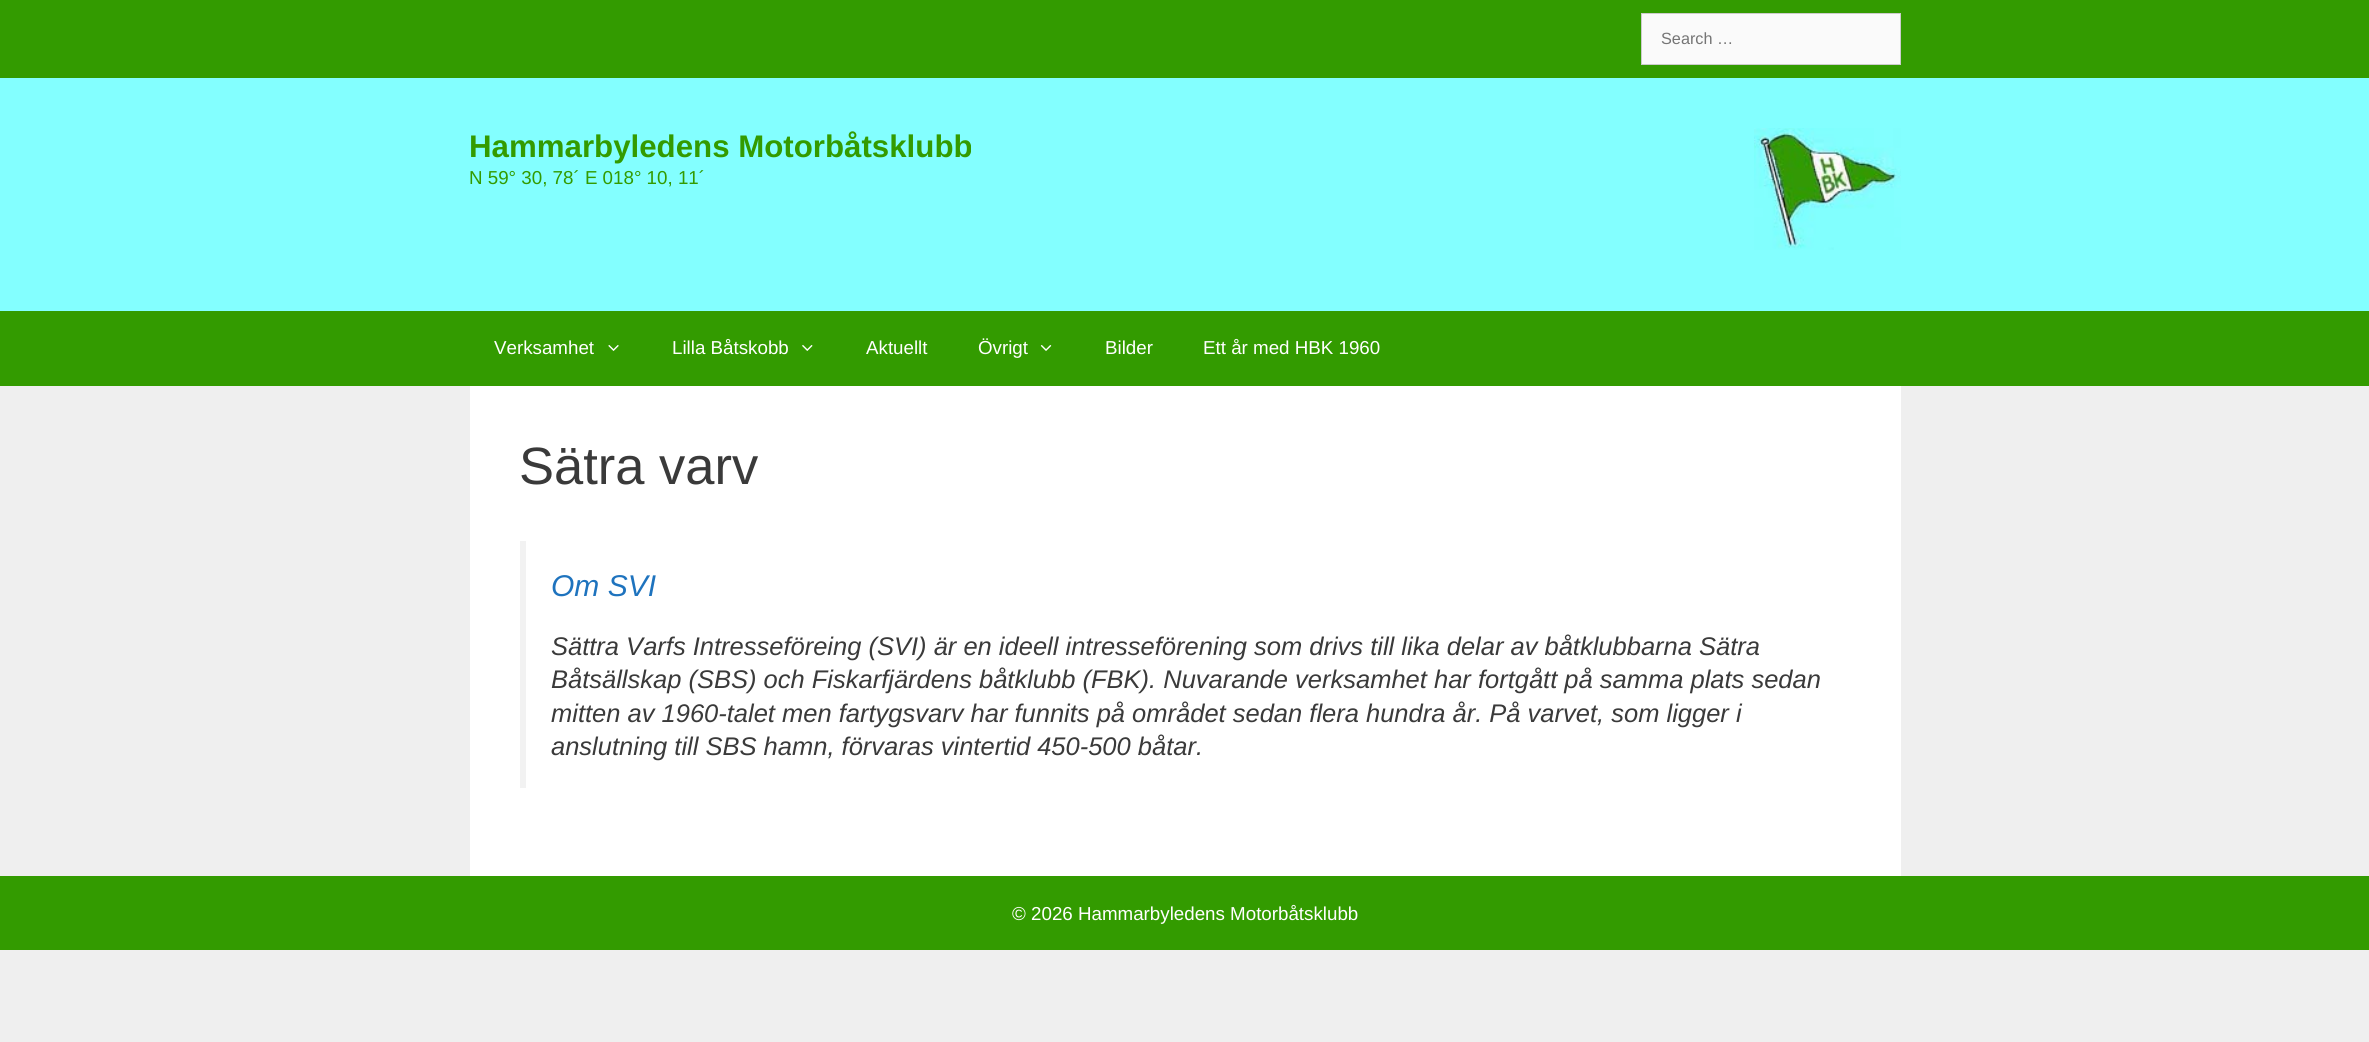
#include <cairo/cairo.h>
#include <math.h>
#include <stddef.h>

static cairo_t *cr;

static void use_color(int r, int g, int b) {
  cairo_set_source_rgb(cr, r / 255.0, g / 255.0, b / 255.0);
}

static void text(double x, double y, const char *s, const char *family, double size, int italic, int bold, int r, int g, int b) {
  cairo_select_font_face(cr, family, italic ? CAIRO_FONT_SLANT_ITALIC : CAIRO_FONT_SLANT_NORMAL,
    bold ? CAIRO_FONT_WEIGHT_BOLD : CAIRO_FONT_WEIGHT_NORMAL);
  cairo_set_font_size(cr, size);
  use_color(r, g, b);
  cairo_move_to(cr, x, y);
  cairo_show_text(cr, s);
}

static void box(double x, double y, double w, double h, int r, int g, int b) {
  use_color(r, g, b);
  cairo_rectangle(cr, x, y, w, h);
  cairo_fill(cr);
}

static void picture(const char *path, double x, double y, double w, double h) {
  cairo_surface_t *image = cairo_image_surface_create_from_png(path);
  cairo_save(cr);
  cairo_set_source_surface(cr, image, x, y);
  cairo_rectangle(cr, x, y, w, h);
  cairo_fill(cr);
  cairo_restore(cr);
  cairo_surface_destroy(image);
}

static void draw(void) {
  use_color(239, 239, 239);
  cairo_paint(cr);
  box(0, 0, 2369, 78, 51, 155, 0);
  use_color(250, 250, 250);
  cairo_rectangle(cr, 1641.5, 13.5, 259, 51);
  cairo_fill_preserve(cr);
  use_color(204, 204, 204);
  cairo_set_line_width(cr, 1);
  cairo_stroke(cr);
  box(0, 78, 2369, 233, 131, 255, 255);
  picture("img_01.png", 1754, 128, 147, 122);
  box(0, 311, 2369, 75, 51, 155, 0);
  picture("img_02.png", 608, 345, 11, 6);
  picture("img_03.png", 802, 345, 11, 6);
  picture("img_04.png", 1040, 345, 12, 6);
  box(470, 386, 1431, 490, 255, 255, 255);
  box(520, 541, 6, 247, 242, 242, 242);
  box(0, 876, 2369, 74, 51, 155, 0);
  text(1661, 44, "Search …", "Liberation Sans", 16.25, 0, 0, 117, 117, 117);
  text(469, 157, "Hammarbyledens Motorbåtsklubb", "Liberation Sans", 31.25, 0, 1, 51, 155, 0);
  text(469, 184, "N 59° 30, 78´ E 018° 10, 11´", "Liberation Sans", 18.75, 0, 0, 51, 155, 0);
  text(494, 354, "Verksamhet", "Liberation Sans", 18.75, 0, 0, 255, 255, 255);
  text(672, 354, "Lilla Båtskobb", "Liberation Sans", 18.75, 0, 0, 255, 255, 255);
  text(866, 354, "Aktuellt", "Liberation Sans", 18.75, 0, 0, 255, 255, 255);
  text(978, 354, "Övrigt", "Liberation Sans", 18.75, 0, 0, 255, 255, 255);
  text(1105, 354, "Bilder", "Liberation Sans", 18.75, 0, 0, 255, 255, 255);
  text(1203, 354, "Ett år med HBK 1960", "Liberation Sans", 18.75, 0, 0, 255, 255, 255);
  text(519, 484, "Sätra varv", "Liberation Sans", 52.5, 0, 0, 58, 58, 58);
  text(551, 596, "Om SVI", "Liberation Sans", 30, 1, 0, 30, 115, 190);
  text(551, 655, "Sättra Varfs Intresseföreing (SVI) är en ideell intresseförening som drivs till lika delar av båtklubbarna Sätra", "Liberation Sans", 25.5, 1, 0, 58, 58, 58);
  text(551, 688, "Båtsällskap (SBS) och Fiskarfjärdens båtklubb (FBK). Nuvarande verksamhet har fortgått på samma plats sedan", "Liberation Sans", 25.5, 1, 0, 58, 58, 58);
  text(551, 722, "mitten av 1960-talet men fartygsvarv har funnits på området sedan flera hundra år. På varvet, som ligger i", "Liberation Sans", 25.5, 1, 0, 58, 58, 58);
  text(551, 755, "anslutning till SBS hamn, förvaras vintertid 450-500 båtar.", "Liberation Sans", 25.5, 1, 0, 58, 58, 58);
  text(1012, 920, "© 2026 Hammarbyledens Motorbåtsklubb", "Liberation Sans", 18.75, 0, 0, 255, 255, 255);
}

int main(void) {
  cairo_surface_t *surface = cairo_image_surface_create(CAIRO_FORMAT_RGB24, 2369, 1042);
  cr = cairo_create(surface);
  cairo_font_options_t *options = cairo_font_options_create();
  cairo_font_options_set_hint_metrics(options, CAIRO_HINT_METRICS_OFF);
  cairo_font_options_set_hint_style(options, CAIRO_HINT_STYLE_NONE);
  cairo_set_font_options(cr, options);
  cairo_set_miter_limit(cr, 4);
  draw();
  cairo_surface_write_to_png(surface, "out.png");
  cairo_font_options_destroy(options);
  cairo_destroy(cr);
  cairo_surface_destroy(surface);
  return 0;
}
